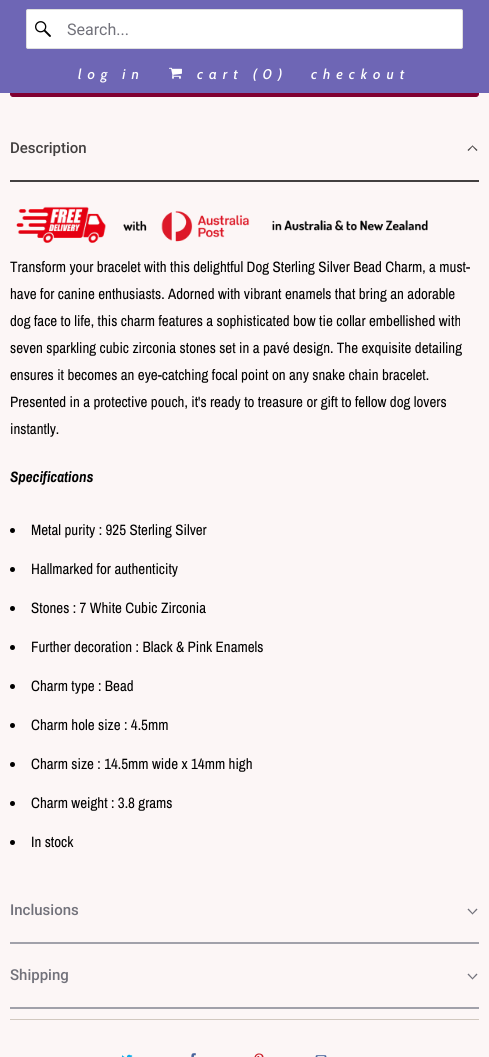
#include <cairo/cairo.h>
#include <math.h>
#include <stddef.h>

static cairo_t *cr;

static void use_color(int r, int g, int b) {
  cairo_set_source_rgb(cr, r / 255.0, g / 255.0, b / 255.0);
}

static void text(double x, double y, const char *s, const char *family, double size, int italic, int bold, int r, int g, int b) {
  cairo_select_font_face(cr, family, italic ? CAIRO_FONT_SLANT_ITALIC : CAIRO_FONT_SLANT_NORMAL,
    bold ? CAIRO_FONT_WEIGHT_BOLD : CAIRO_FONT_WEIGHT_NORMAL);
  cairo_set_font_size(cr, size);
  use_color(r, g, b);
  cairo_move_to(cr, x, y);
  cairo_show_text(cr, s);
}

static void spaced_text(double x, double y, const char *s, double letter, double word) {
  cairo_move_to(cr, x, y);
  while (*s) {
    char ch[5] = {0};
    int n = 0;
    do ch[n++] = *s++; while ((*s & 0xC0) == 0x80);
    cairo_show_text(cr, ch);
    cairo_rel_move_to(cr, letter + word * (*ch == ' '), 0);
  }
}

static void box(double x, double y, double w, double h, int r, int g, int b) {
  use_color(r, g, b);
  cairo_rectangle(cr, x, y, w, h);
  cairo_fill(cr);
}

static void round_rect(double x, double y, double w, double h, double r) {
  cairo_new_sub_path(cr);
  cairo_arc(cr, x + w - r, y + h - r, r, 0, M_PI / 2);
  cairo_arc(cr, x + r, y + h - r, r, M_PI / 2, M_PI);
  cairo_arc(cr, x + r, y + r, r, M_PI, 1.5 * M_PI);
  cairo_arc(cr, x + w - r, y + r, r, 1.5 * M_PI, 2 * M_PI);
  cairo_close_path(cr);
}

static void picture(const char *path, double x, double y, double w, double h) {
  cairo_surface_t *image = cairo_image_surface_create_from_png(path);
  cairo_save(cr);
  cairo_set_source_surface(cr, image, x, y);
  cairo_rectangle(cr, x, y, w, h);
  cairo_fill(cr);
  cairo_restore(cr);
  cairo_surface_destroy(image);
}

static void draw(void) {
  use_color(252, 246, 246);
  cairo_paint(cr);
  use_color(128, 0, 49);
  round_rect(10.5, 57.5, 468, 39, 2.5);
  cairo_fill_preserve(cr);
  cairo_set_line_width(cr, 1);
  cairo_stroke(cr);
  box(0, 0, 489, 93, 110, 102, 181);
  use_color(255, 255, 255);
  round_rect(26.5, 9.5, 436, 39, 1.5);
  cairo_fill_preserve(cr);
  use_color(223, 223, 223);
  cairo_stroke(cr);
  picture("img_01.png", 35, 21, 16, 16);
  picture("img_02.png", 169, 67, 13, 12);
  box(10, 180, 469, 2, 67, 64, 64);
  cairo_new_path(cr);
  cairo_move_to(cr, 468.5, 151);
  cairo_line_to(cr, 467.5, 150);
  cairo_line_to(cr, 472.5, 145.5);
  cairo_line_to(cr, 473, 146);
  cairo_close_path(cr);
  cairo_fill(cr);
  cairo_new_path(cr);
  cairo_move_to(cr, 476.5, 151);
  cairo_line_to(cr, 472, 146);
  cairo_line_to(cr, 472.5, 145.5);
  cairo_line_to(cr, 477.5, 150);
  cairo_close_path(cr);
  cairo_fill(cr);
  picture("img_03.png", 16, 206, 412, 37);
  use_color(0, 0, 0);
  cairo_arc(cr, 12.5, 530.5, 2.5, 0, 2 * M_PI);
  cairo_fill(cr);
  cairo_arc(cr, 12.5, 569.5, 2.5, 0, 2 * M_PI);
  cairo_fill(cr);
  cairo_arc(cr, 12.5, 608.5, 2.5, 0, 2 * M_PI);
  cairo_fill(cr);
  cairo_arc(cr, 12.5, 647.5, 2.5, 0, 2 * M_PI);
  cairo_fill(cr);
  cairo_arc(cr, 12.5, 686.5, 2.5, 0, 2 * M_PI);
  cairo_fill(cr);
  cairo_arc(cr, 12.5, 725.5, 2.5, 0, 2 * M_PI);
  cairo_fill(cr);
  cairo_arc(cr, 12.5, 764.5, 2.5, 0, 2 * M_PI);
  cairo_fill(cr);
  cairo_arc(cr, 12.5, 803.5, 2.5, 0, 2 * M_PI);
  cairo_fill(cr);
  cairo_arc(cr, 12.5, 842.5, 2.5, 0, 2 * M_PI);
  cairo_fill(cr);
  box(10, 942, 469, 2, 161, 161, 170);
  use_color(113, 113, 122);
  cairo_new_path(cr);
  cairo_move_to(cr, 476.5, 908.5);
  cairo_line_to(cr, 477.5, 909.5);
  cairo_line_to(cr, 472.5, 914.5);
  cairo_line_to(cr, 472, 913.5);
  cairo_close_path(cr);
  cairo_fill(cr);
  cairo_new_path(cr);
  cairo_move_to(cr, 468.5, 908.5);
  cairo_line_to(cr, 473, 913.5);
  cairo_line_to(cr, 472.5, 914.5);
  cairo_line_to(cr, 467.5, 909.5);
  cairo_close_path(cr);
  cairo_fill(cr);
  box(10, 1007, 469, 2, 161, 161, 170);
  use_color(113, 113, 122);
  cairo_new_path(cr);
  cairo_move_to(cr, 476.5, 973.5);
  cairo_line_to(cr, 477.5, 974.5);
  cairo_line_to(cr, 472.5, 979.5);
  cairo_line_to(cr, 472, 978.5);
  cairo_close_path(cr);
  cairo_fill(cr);
  cairo_new_path(cr);
  cairo_move_to(cr, 468.5, 973.5);
  cairo_line_to(cr, 473, 978.5);
  cairo_line_to(cr, 472.5, 979.5);
  cairo_line_to(cr, 467.5, 974.5);
  cairo_close_path(cr);
  cairo_fill(cr);
  box(10, 1019, 469, 1, 209, 200, 191);
  picture("img_04.png", 121, 1054, 12, 3);
  picture("img_05.png", 191, 1053, 5, 4);
  picture("img_06.png", 254, 1053, 10, 4);
  picture("img_07.png", 315, 1055, 12, 2);
  text(67, 35, "Search...", "Roboto", 16, 0, 0, 113, 113, 122);
  cairo_select_font_face(cr, "Cabin Medium", CAIRO_FONT_SLANT_ITALIC, CAIRO_FONT_WEIGHT_NORMAL);
  cairo_set_font_size(cr, 14);
  use_color(255, 255, 255);
  spaced_text(78, 79, "log in", 6, 0);
  spaced_text(197, 79, "cart (0)", 6, 0);
  spaced_text(311, 79, "checkout", 6, 0);
  text(10, 153, "Description", "Roboto Medium", 15, 0, 0, 67, 64, 64);
  text(10, 272, "Transform your bracelet with this delightful Dog Sterling Silver Bead Charm, a must-", "Archivo Narrow", 15, 0, 0, 0, 0, 0);
  text(10, 299, "have for canine enthusiasts. Adorned with vibrant enamels that bring an adorable", "Archivo Narrow", 15, 0, 0, 0, 0, 0);
  text(10, 326, "dog face to life, this charm features a sophisticated bow tie collar embellished with", "Archivo Narrow", 15, 0, 0, 0, 0, 0);
  text(10, 353, "seven sparkling cubic zirconia stones set in a pavé design. The exquisite detailing", "Archivo Narrow", 15, 0, 0, 0, 0, 0);
  text(10, 380, "ensures it becomes an eye-catching focal point on any snake chain bracelet.", "Archivo Narrow", 15, 0, 0, 0, 0, 0);
  text(10, 407, "Presented in a protective pouch, it's ready to treasure or gift to fellow dog lovers", "Archivo Narrow", 15, 0, 0, 0, 0, 0);
  text(10, 434, "instantly.", "Archivo Narrow", 15, 0, 0, 0, 0, 0);
  text(10, 482, "Specifications", "Archivo Narrow", 15, 1, 1, 0, 0, 0);
  text(31, 535, "Metal purity : 925 Sterling Silver", "Archivo Narrow", 15, 0, 0, 0, 0, 0);
  text(31, 574, "Hallmarked for authenticity", "Archivo Narrow", 15, 0, 0, 0, 0, 0);
  text(31, 613, "Stones : 7 White Cubic Zirconia", "Archivo Narrow", 15, 0, 0, 0, 0, 0);
  text(31, 652, "Further decoration : Black & Pink Enamels", "Archivo Narrow", 15, 0, 0, 0, 0, 0);
  text(31, 691, "Charm type : Bead", "Archivo Narrow", 15, 0, 0, 0, 0, 0);
  text(31, 730, "Charm hole size : 4.5mm", "Archivo Narrow", 15, 0, 0, 0, 0, 0);
  text(31, 769, "Charm size : 14.5mm wide x 14mm high", "Archivo Narrow", 15, 0, 0, 0, 0, 0);
  text(31, 808, "Charm weight : 3.8 grams", "Archivo Narrow", 15, 0, 0, 0, 0, 0);
  text(31, 847, "In stock", "Archivo Narrow", 15, 0, 0, 0, 0, 0);
  text(10, 915, "Inclusions", "Roboto Medium", 15, 0, 0, 113, 113, 122);
  text(10, 980, "Shipping", "Roboto Medium", 15, 0, 0, 113, 113, 122);
}

int main(void) {
  cairo_surface_t *surface = cairo_image_surface_create(CAIRO_FORMAT_RGB24, 489, 1057);
  cr = cairo_create(surface);
  cairo_font_options_t *options = cairo_font_options_create();
  cairo_font_options_set_hint_metrics(options, CAIRO_HINT_METRICS_OFF);
  cairo_font_options_set_hint_style(options, CAIRO_HINT_STYLE_NONE);
  cairo_set_font_options(cr, options);
  cairo_set_miter_limit(cr, 4);
  draw();
  cairo_surface_write_to_png(surface, "out.png");
  cairo_font_options_destroy(options);
  cairo_destroy(cr);
  cairo_surface_destroy(surface);
  return 0;
}
